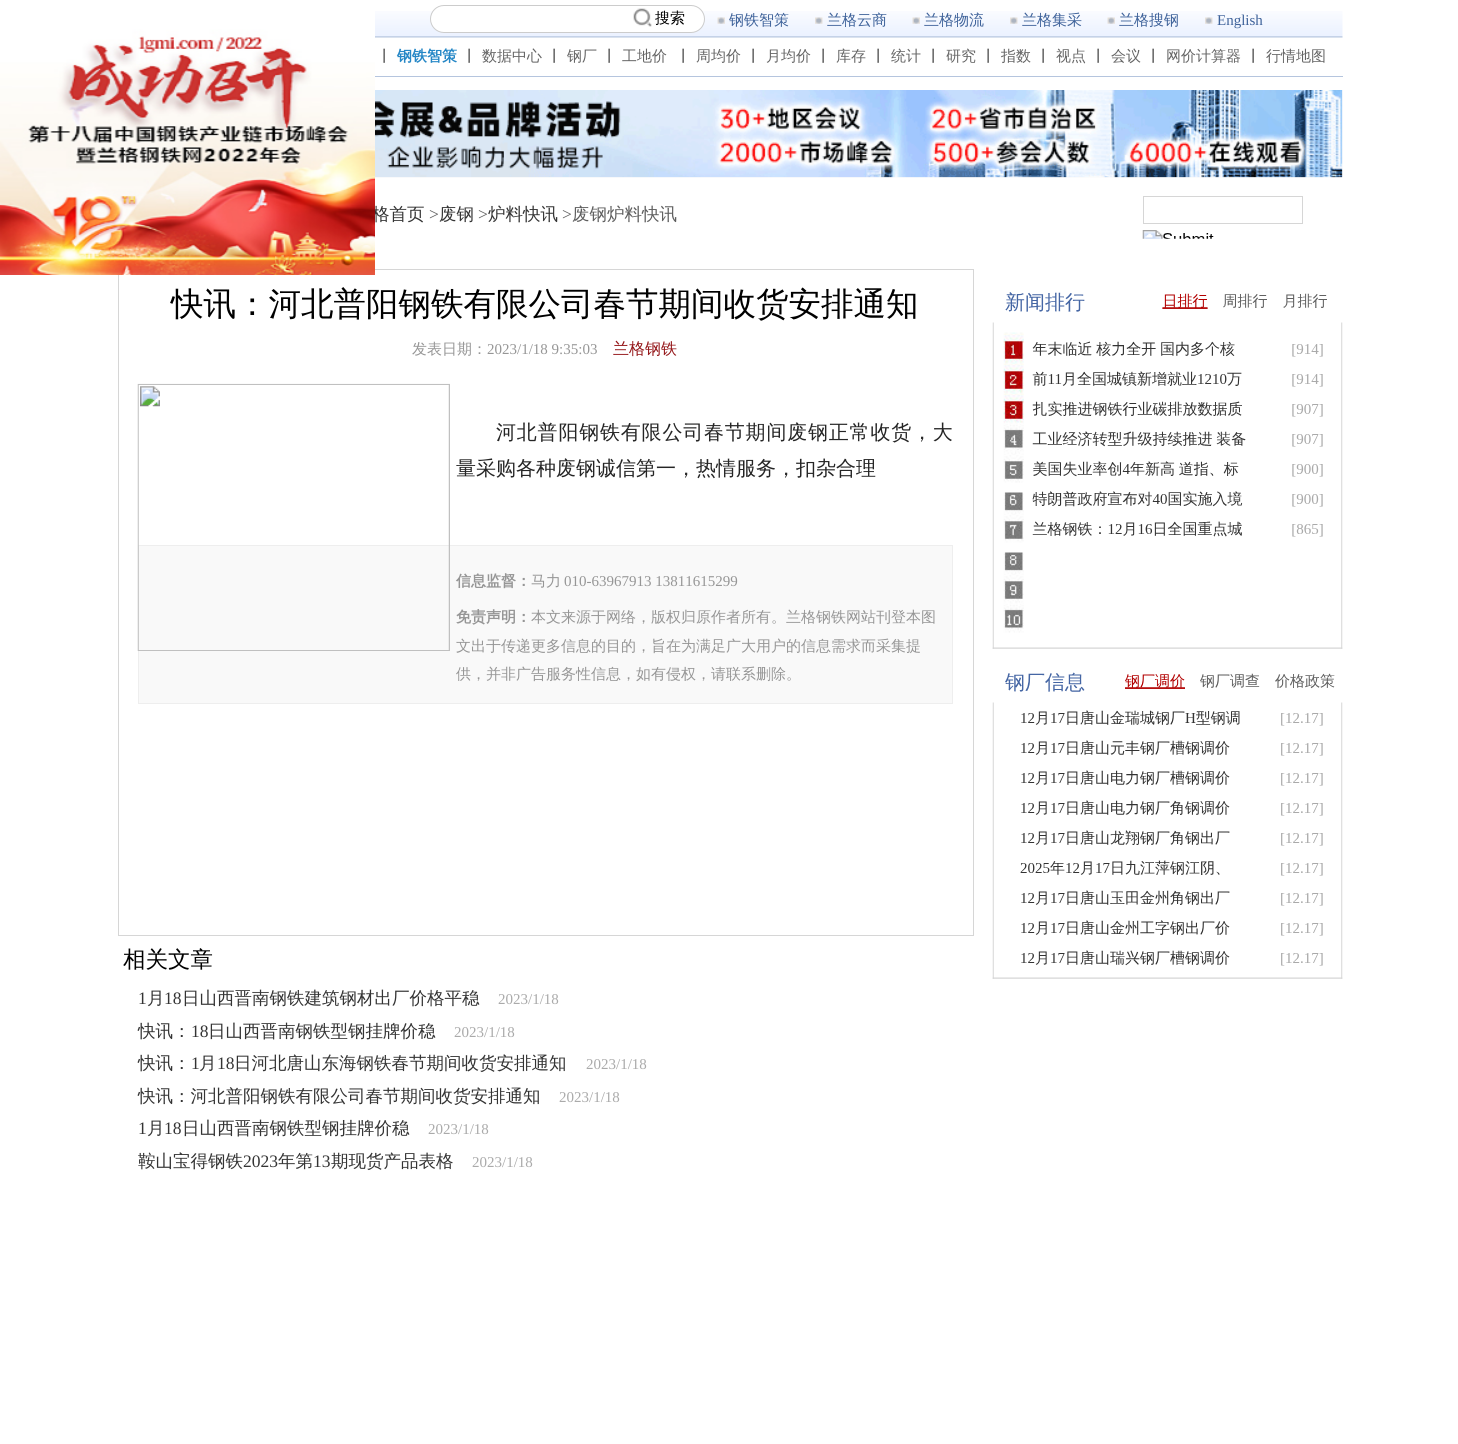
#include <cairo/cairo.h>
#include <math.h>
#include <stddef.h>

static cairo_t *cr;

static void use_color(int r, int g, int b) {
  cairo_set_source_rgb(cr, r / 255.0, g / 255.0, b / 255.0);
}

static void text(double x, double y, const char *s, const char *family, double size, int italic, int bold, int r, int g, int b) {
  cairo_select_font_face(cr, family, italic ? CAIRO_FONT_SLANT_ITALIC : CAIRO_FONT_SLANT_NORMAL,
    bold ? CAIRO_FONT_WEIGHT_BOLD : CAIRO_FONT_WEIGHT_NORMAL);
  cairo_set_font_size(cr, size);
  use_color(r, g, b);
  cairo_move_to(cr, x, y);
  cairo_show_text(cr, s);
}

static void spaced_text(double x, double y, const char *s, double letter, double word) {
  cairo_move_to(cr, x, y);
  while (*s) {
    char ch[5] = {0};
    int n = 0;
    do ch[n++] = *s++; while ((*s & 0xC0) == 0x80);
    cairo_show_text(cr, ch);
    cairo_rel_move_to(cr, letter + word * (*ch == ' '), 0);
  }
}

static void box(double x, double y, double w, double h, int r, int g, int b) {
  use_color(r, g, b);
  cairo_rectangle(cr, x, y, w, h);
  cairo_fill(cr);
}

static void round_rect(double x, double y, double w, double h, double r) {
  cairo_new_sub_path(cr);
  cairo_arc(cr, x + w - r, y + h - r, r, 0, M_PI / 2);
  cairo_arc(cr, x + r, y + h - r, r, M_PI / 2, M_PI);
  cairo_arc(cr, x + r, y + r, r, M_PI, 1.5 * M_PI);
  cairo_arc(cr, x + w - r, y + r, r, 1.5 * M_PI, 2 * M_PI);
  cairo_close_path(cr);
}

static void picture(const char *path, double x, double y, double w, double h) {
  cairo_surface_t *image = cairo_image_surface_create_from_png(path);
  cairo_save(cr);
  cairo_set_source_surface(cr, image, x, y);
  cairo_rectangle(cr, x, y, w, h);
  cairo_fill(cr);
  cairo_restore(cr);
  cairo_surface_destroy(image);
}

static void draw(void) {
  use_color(255, 255, 255);
  cairo_paint(cr);
  picture("img_02.png", 375, 11, 968, 27);
  use_color(255, 255, 255);
  round_rect(430.5, 5.5, 274, 27, 13.5);
  cairo_fill_preserve(cr);
  use_color(204, 204, 204);
  cairo_set_line_width(cr, 1);
  cairo_stroke(cr);
  picture("img_03.png", 633, 8, 19, 19);
  picture("img_04.png", 717, 17, 8, 7);
  picture("img_05.png", 815, 17, 8, 7);
  picture("img_04.png", 912, 17, 8, 7);
  picture("img_05.png", 1010, 17, 8, 7);
  picture("img_06.png", 1107, 17, 8, 7);
  picture("img_07.png", 1205, 17, 8, 7);
  box(375, 76, 968, 1, 181, 197, 222);
  picture("img_08.png", 375, 90, 968, 88);
  cairo_rectangle(cr, 1143.5, 196.5, 159, 27);
  use_color(214, 214, 214);
  cairo_stroke(cr);
  picture("img_09.png", 1142, 230, 72, 9);
  cairo_rectangle(cr, 118.5, 269.5, 855, 666);
  cairo_stroke(cr);
  use_color(249, 249, 249);
  cairo_rectangle(cr, 138.5, 545.5, 814, 158);
  cairo_fill_preserve(cr);
  use_color(238, 238, 238);
  cairo_stroke(cr);
  picture("img_10.png", 137, 383, 313, 268);
  picture("img_11.png", 992, 292, 351, 687);
  text(655, 23, "搜索", "WenQuanYi Zen Hei Medium", 15, 0, 0, 0, 0, 0);
  text(729, 25, "钢铁智策", "WenQuanYi Zen Hei Medium", 15, 0, 0, 62, 98, 154);
  text(827, 25, "兰格云商", "WenQuanYi Zen Hei Medium", 15, 0, 0, 62, 98, 154);
  text(924, 25, "兰格物流", "WenQuanYi Zen Hei Medium", 15, 0, 0, 62, 98, 154);
  text(1022, 25, "兰格集采", "WenQuanYi Zen Hei Medium", 15, 0, 0, 62, 98, 154);
  text(1119, 25, "兰格搜钢", "WenQuanYi Zen Hei Medium", 15, 0, 0, 62, 98, 154);
  text(1217, 25, "English", "Liberation Serif", 15, 0, 0, 62, 98, 154);
  text(377, 61, "丨", "WenQuanYi Zen Hei Medium", 15, 0, 0, 52, 52, 52);
  text(397, 61, "钢铁智策", "WenQuanYi Zen Hei", 15, 0, 1, 37, 135, 198);
  text(462, 61, "丨", "WenQuanYi Zen Hei Medium", 15, 0, 0, 52, 52, 52);
  text(482, 61, "数据中心", "WenQuanYi Zen Hei Medium", 15, 0, 0, 101, 101, 101);
  text(547, 61, "丨", "WenQuanYi Zen Hei Medium", 15, 0, 0, 52, 52, 52);
  text(567, 61, "钢厂", "WenQuanYi Zen Hei Medium", 15, 0, 0, 101, 101, 101);
  text(602, 61, "丨", "WenQuanYi Zen Hei Medium", 15, 0, 0, 52, 52, 52);
  text(622, 61, "工地价", "WenQuanYi Zen Hei Medium", 15, 0, 0, 101, 101, 101);
  text(676, 61, "丨", "WenQuanYi Zen Hei Medium", 15, 0, 0, 52, 52, 52);
  text(696, 61, "周均价", "WenQuanYi Zen Hei Medium", 15, 0, 0, 101, 101, 101);
  text(746, 61, "丨", "WenQuanYi Zen Hei Medium", 15, 0, 0, 52, 52, 52);
  text(766, 61, "月均价", "WenQuanYi Zen Hei Medium", 15, 0, 0, 101, 101, 101);
  text(816, 61, "丨", "WenQuanYi Zen Hei Medium", 15, 0, 0, 52, 52, 52);
  text(836, 61, "库存", "WenQuanYi Zen Hei Medium", 15, 0, 0, 101, 101, 101);
  text(871, 61, "丨", "WenQuanYi Zen Hei Medium", 15, 0, 0, 52, 52, 52);
  text(891, 61, "统计", "WenQuanYi Zen Hei Medium", 15, 0, 0, 101, 101, 101);
  text(926, 61, "丨", "WenQuanYi Zen Hei Medium", 15, 0, 0, 52, 52, 52);
  text(946, 61, "研究", "WenQuanYi Zen Hei Medium", 15, 0, 0, 101, 101, 101);
  text(981, 61, "丨", "WenQuanYi Zen Hei Medium", 15, 0, 0, 52, 52, 52);
  text(1001, 61, "指数", "WenQuanYi Zen Hei Medium", 15, 0, 0, 101, 101, 101);
  text(1036, 61, "丨", "WenQuanYi Zen Hei Medium", 15, 0, 0, 52, 52, 52);
  text(1056, 61, "视点", "WenQuanYi Zen Hei Medium", 15, 0, 0, 101, 101, 101);
  text(1091, 61, "丨", "WenQuanYi Zen Hei Medium", 15, 0, 0, 52, 52, 52);
  text(1111, 61, "会议", "WenQuanYi Zen Hei Medium", 15, 0, 0, 101, 101, 101);
  text(1146, 61, "丨", "WenQuanYi Zen Hei Medium", 15, 0, 0, 52, 52, 52);
  text(1166, 61, "网价计算器", "WenQuanYi Zen Hei Medium", 15, 0, 0, 101, 101, 101);
  text(1246, 61, "丨", "WenQuanYi Zen Hei Medium", 15, 0, 0, 52, 52, 52);
  text(1266, 61, "行情地图", "WenQuanYi Zen Hei Medium", 15, 0, 0, 101, 101, 101);
  text(372, 220, "格首页", "WenQuanYi Zen Hei Medium", 17.5, 0, 0, 52, 52, 52);
  picture("img_01.png", 0, 10, 375, 265);
  text(429, 220, ">", "Liberation Serif", 17.5, 0, 0, 94, 94, 94);
  text(439, 220, "废钢", "WenQuanYi Zen Hei Medium", 17.5, 0, 0, 52, 52, 52);
  text(478, 220, ">", "Liberation Serif", 17.5, 0, 0, 94, 94, 94);
  text(488, 220, "炉料快讯", "WenQuanYi Zen Hei Medium", 17.5, 0, 0, 52, 52, 52);
  text(562, 220, ">", "Liberation Serif", 17.5, 0, 0, 94, 94, 94);
  text(572, 220, "废钢炉料快讯", "WenQuanYi Zen Hei Medium", 17.5, 0, 0, 94, 94, 94);
  text(171, 315, "快讯：河北普阳钢铁有限公司春节期间收货安排通知", "WenQuanYi Zen Hei Medium", 32.5, 0, 0, 0, 0, 0);
  text(412, 354, "发表日期：", "WenQuanYi Zen Hei Medium", 15, 0, 0, 150, 150, 150);
  text(487, 354, "2023/1/18 9:35:03", "Liberation Serif", 15, 0, 0, 150, 150, 150);
  text(613, 354, "兰格钢铁", "WenQuanYi Zen Hei Medium", 16, 0, 0, 148, 21, 24);
  cairo_set_font_size(cr, 20);
  use_color(37, 37, 37);
  spaced_text(496, 439, "河北普阳钢铁有限公司春节期间废钢正常收货，大", 0.8, 0);
  text(456, 475, "量采购各种废钢诚信第一，热情服务，扣杂合理", "WenQuanYi Zen Hei Medium", 20, 0, 0, 37, 37, 37);
  text(456, 586, "信息监督：", "WenQuanYi Zen Hei", 15, 0, 1, 150, 150, 150);
  text(531, 586, "马力", "WenQuanYi Zen Hei Medium", 15, 0, 0, 150, 150, 150);
  text(564, 586, "010-63967913 13811615299", "Liberation Serif", 15, 0, 0, 150, 150, 150);
  text(456, 622, "免责声明：", "WenQuanYi Zen Hei", 15, 0, 1, 150, 150, 150);
  text(531, 622, "本文来源于网络，版权归原作者所有。兰格钢铁网站刊登本图", "WenQuanYi Zen Hei Medium", 15, 0, 0, 150, 150, 150);
  text(456, 651, "文出于传递更多信息的目的，旨在为满足广大用户的信息需求而采集提", "WenQuanYi Zen Hei Medium", 15, 0, 0, 150, 150, 150);
  text(456, 679, "供，并非广告服务性信息，如有侵权，请联系删除。", "WenQuanYi Zen Hei Medium", 15, 0, 0, 150, 150, 150);
  text(123, 967, "相关文章", "WenQuanYi Zen Hei Medium", 22.5, 0, 0, 0, 0, 0);
  text(138, 1004, "1", "Liberation Serif", 17.5, 0, 0, 52, 52, 52);
  text(147, 1004, "月", "WenQuanYi Zen Hei Medium", 17.5, 0, 0, 52, 52, 52);
  text(164, 1004, "18", "Liberation Serif", 17.5, 0, 0, 52, 52, 52);
  text(182, 1004, "日山西晋南钢铁建筑钢材出厂价格平稳", "WenQuanYi Zen Hei Medium", 17.5, 0, 0, 52, 52, 52);
  text(498, 1004, "2023/1/18", "Liberation Serif", 15, 0, 0, 170, 170, 170);
  text(138, 1037, "快讯：", "WenQuanYi Zen Hei Medium", 17.5, 0, 0, 52, 52, 52);
  text(191, 1037, "18", "Liberation Serif", 17.5, 0, 0, 52, 52, 52);
  text(208, 1037, "日山西晋南钢铁型钢挂牌价稳", "WenQuanYi Zen Hei Medium", 17.5, 0, 0, 52, 52, 52);
  text(454, 1037, "2023/1/18", "Liberation Serif", 15, 0, 0, 170, 170, 170);
  text(138, 1069, "快讯：", "WenQuanYi Zen Hei Medium", 17.5, 0, 0, 52, 52, 52);
  text(191, 1069, "1", "Liberation Serif", 17.5, 0, 0, 52, 52, 52);
  text(199, 1069, "月", "WenQuanYi Zen Hei Medium", 17.5, 0, 0, 52, 52, 52);
  text(217, 1069, "18", "Liberation Serif", 17.5, 0, 0, 52, 52, 52);
  text(234, 1069, "日河北唐山东海钢铁春节期间收货安排通知", "WenQuanYi Zen Hei Medium", 17.5, 0, 0, 52, 52, 52);
  text(586, 1069, "2023/1/18", "Liberation Serif", 15, 0, 0, 170, 170, 170);
  text(138, 1102, "快讯：河北普阳钢铁有限公司春节期间收货安排通知", "WenQuanYi Zen Hei Medium", 17.5, 0, 0, 52, 52, 52);
  text(559, 1102, "2023/1/18", "Liberation Serif", 15, 0, 0, 170, 170, 170);
  text(138, 1134, "1", "Liberation Serif", 17.5, 0, 0, 52, 52, 52);
  text(147, 1134, "月", "WenQuanYi Zen Hei Medium", 17.5, 0, 0, 52, 52, 52);
  text(164, 1134, "18", "Liberation Serif", 17.5, 0, 0, 52, 52, 52);
  text(182, 1134, "日山西晋南钢铁型钢挂牌价稳", "WenQuanYi Zen Hei Medium", 17.5, 0, 0, 52, 52, 52);
  text(428, 1134, "2023/1/18", "Liberation Serif", 15, 0, 0, 170, 170, 170);
  text(138, 1167, "鞍山宝得钢铁", "WenQuanYi Zen Hei Medium", 17.5, 0, 0, 52, 52, 52);
  text(243, 1167, "2023", "Liberation Serif", 17.5, 0, 0, 52, 52, 52);
  text(278, 1167, "年第", "WenQuanYi Zen Hei Medium", 17.5, 0, 0, 52, 52, 52);
  text(313, 1167, "13", "Liberation Serif", 17.5, 0, 0, 52, 52, 52);
  text(331, 1167, "期现货产品表格", "WenQuanYi Zen Hei Medium", 17.5, 0, 0, 52, 52, 52);
  text(472, 1167, "2023/1/18", "Liberation Serif", 15, 0, 0, 170, 170, 170);
}

int main(void) {
  cairo_surface_t *surface = cairo_image_surface_create(CAIRO_FORMAT_RGB24, 1458, 1444);
  cr = cairo_create(surface);
  cairo_font_options_t *options = cairo_font_options_create();
  cairo_font_options_set_hint_metrics(options, CAIRO_HINT_METRICS_OFF);
  cairo_font_options_set_hint_style(options, CAIRO_HINT_STYLE_NONE);
  cairo_set_font_options(cr, options);
  cairo_set_miter_limit(cr, 4);
  draw();
  cairo_surface_write_to_png(surface, "out.png");
  cairo_font_options_destroy(options);
  cairo_destroy(cr);
  cairo_surface_destroy(surface);
  return 0;
}
